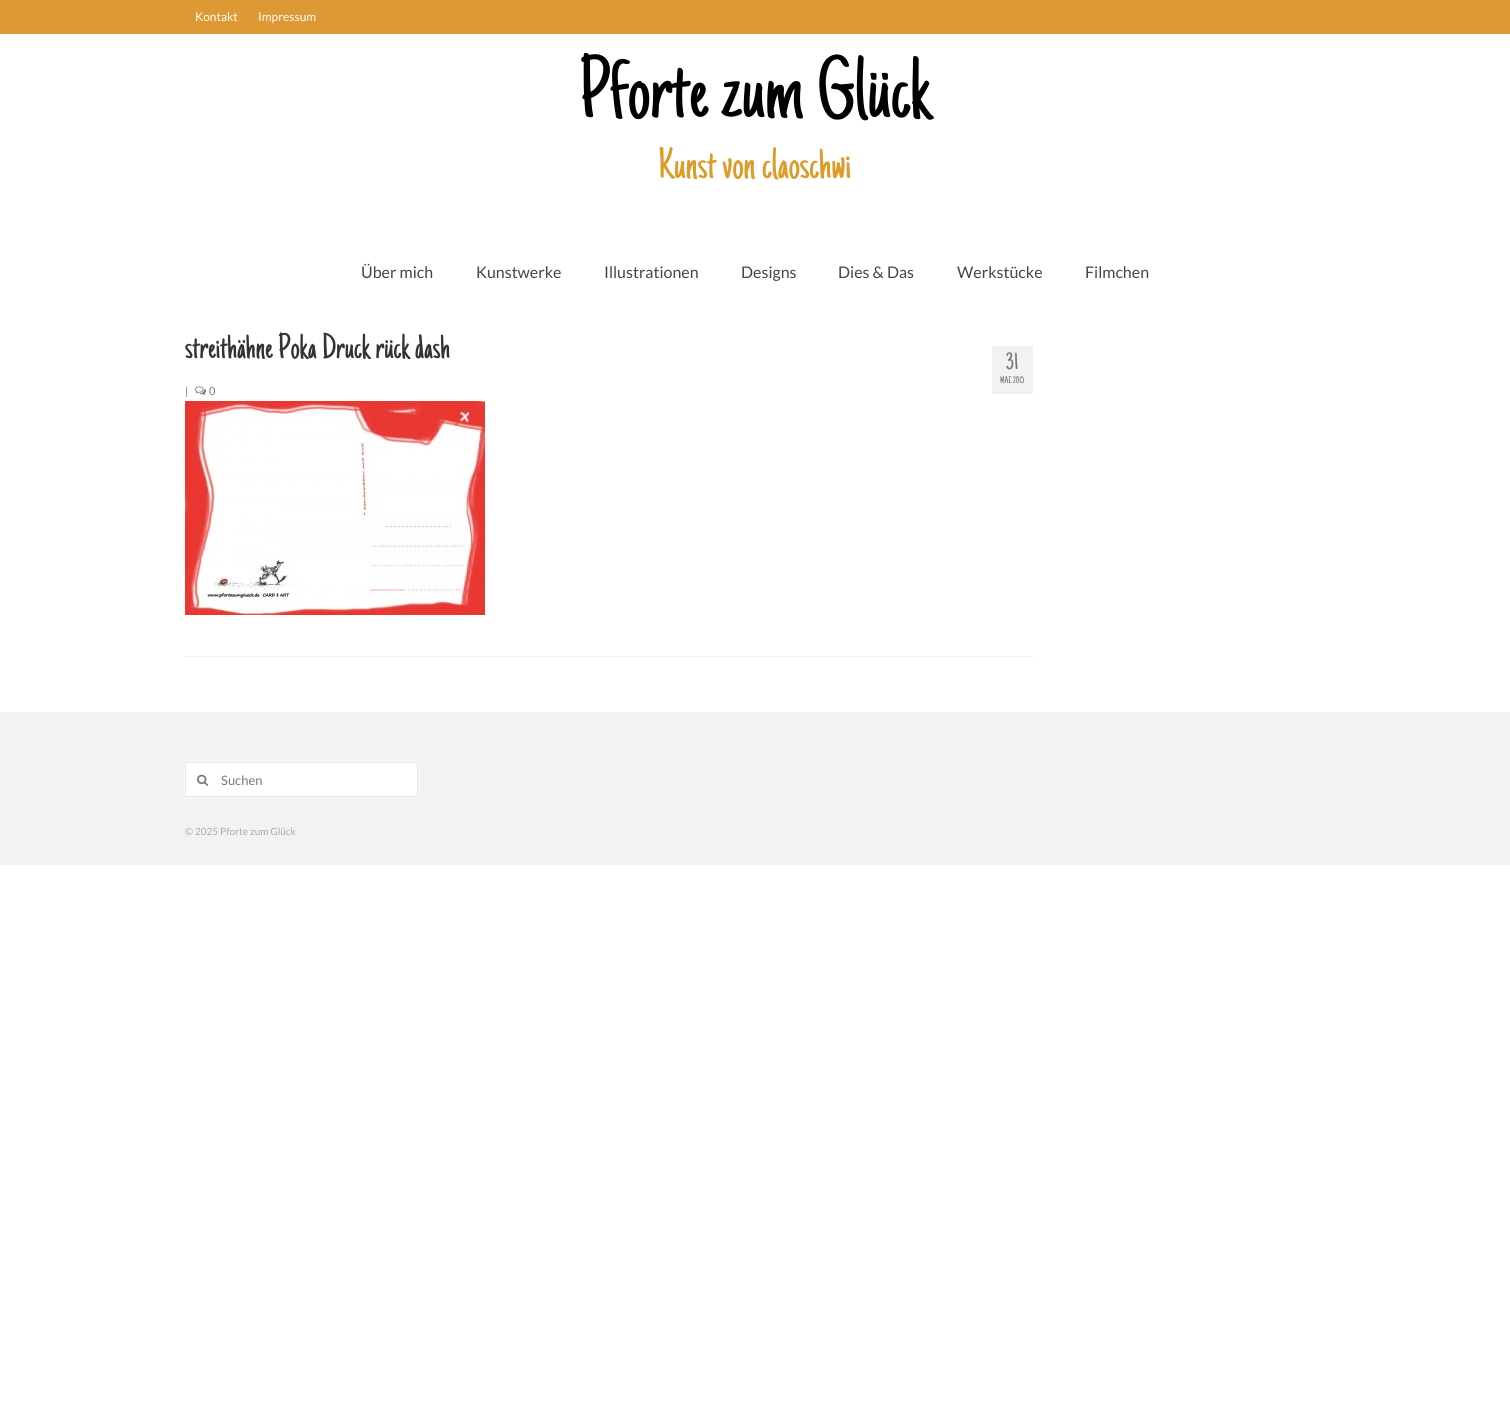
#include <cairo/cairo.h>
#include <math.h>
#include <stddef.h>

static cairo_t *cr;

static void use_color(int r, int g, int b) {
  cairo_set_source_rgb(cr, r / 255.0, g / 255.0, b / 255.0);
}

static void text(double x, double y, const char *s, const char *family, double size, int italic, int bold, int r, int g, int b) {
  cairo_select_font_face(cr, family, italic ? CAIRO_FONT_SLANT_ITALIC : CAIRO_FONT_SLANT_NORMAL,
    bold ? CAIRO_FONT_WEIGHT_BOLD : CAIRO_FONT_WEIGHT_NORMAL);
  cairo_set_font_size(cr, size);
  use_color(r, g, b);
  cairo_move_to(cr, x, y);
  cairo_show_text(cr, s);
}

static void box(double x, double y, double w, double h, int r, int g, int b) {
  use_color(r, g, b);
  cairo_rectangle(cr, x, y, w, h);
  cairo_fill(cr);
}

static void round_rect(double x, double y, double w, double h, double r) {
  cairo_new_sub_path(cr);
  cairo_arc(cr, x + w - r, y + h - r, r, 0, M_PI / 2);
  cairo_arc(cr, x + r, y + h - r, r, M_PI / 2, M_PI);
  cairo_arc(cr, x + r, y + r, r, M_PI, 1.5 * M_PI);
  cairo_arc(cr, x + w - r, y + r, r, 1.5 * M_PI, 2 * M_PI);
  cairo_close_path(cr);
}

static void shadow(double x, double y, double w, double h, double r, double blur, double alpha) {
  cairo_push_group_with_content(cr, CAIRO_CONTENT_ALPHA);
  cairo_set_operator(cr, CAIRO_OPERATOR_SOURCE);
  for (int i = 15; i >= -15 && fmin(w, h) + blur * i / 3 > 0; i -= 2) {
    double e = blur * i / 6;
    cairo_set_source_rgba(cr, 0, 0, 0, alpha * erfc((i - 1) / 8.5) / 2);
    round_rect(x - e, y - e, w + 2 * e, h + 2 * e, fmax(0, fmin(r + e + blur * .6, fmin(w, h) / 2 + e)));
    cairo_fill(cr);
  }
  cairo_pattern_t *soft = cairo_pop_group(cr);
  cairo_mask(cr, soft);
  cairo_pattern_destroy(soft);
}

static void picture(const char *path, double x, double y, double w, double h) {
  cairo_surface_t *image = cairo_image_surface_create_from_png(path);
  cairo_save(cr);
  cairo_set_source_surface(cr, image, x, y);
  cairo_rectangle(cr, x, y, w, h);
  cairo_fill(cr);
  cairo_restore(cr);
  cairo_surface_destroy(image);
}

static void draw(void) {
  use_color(255, 255, 255);
  cairo_paint(cr);
  box(0, 0, 1510, 34, 221, 153, 51);
  picture("img_01.png", 195, 386, 11, 9);
  box(992, 346, 41, 48, 242, 242, 242);
  picture("img_02.png", 185, 401, 300, 214);
  box(185, 656, 848, 1, 242, 242, 242);
  box(0, 712, 1510, 153, 242, 242, 242);
  use_color(255, 255, 255);
  shadow(185, 762, 233, 35, 0, 1.5, 1);
  use_color(255, 255, 255);
  cairo_rectangle(cr, 185.5, 762.5, 232, 34);
  cairo_fill_preserve(cr);
  use_color(231, 231, 231);
  cairo_set_line_width(cr, 1);
  cairo_stroke(cr);
  picture("img_03.png", 197, 774, 12, 12);
  text(195, 21, "Kontakt", "Lato", 12, 0, 0, 255, 255, 255);
  text(258, 21, "Impressum", "Lato", 12, 0, 0, 255, 255, 255);
  text(579, 117, "Pforte zum Glück", "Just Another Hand", 90, 0, 0, 2, 0, 0);
  text(658, 178, "Kunst von claoschwi", "Just Another Hand", 45, 0, 0, 221, 155, 42);
  text(361, 278, "Über mich", "Lato", 16, 0, 0, 68, 68, 68);
  text(476, 278, "Kunstwerke", "Lato", 16, 0, 0, 68, 68, 68);
  text(604, 278, "Illustrationen", "Lato", 16, 0, 0, 68, 68, 68);
  text(741, 278, "Designs", "Lato", 16, 0, 0, 68, 68, 68);
  text(838, 278, "Dies & Das", "Lato", 16, 0, 0, 68, 68, 68);
  text(957, 278, "Werkstücke", "Lato", 16, 0, 0, 68, 68, 68);
  text(1085, 278, "Filmchen", "Lato", 16, 0, 0, 68, 68, 68);
  text(185, 358, "streithähne Poka Druck rück dash", "Just Another Hand", 36, 0, 0, 51, 51, 51);
  text(185, 395, "|", "Lato", 11, 0, 0, 119, 119, 119);
  text(209, 395, "0", "Lato", 11, 0, 0, 119, 119, 119);
  text(1006, 369, "31", "Just Another Hand", 24, 0, 0, 119, 119, 119);
  text(1000, 383, "MAI 2015", "Just Another Hand", 10, 0, 0, 119, 119, 119);
  text(221, 785, "Suchen", "Lato", 13, 0, 0, 119, 119, 119);
  text(185, 835, "© 2025 Pforte zum Glück", "Lato", 10, 0, 0, 170, 170, 170);
}

int main(void) {
  cairo_surface_t *surface = cairo_image_surface_create(CAIRO_FORMAT_RGB24, 1510, 1404);
  cr = cairo_create(surface);
  cairo_font_options_t *options = cairo_font_options_create();
  cairo_font_options_set_hint_metrics(options, CAIRO_HINT_METRICS_OFF);
  cairo_font_options_set_hint_style(options, CAIRO_HINT_STYLE_NONE);
  cairo_set_font_options(cr, options);
  cairo_set_miter_limit(cr, 4);
  draw();
  cairo_surface_write_to_png(surface, "out.png");
  cairo_font_options_destroy(options);
  cairo_destroy(cr);
  cairo_surface_destroy(surface);
  return 0;
}
